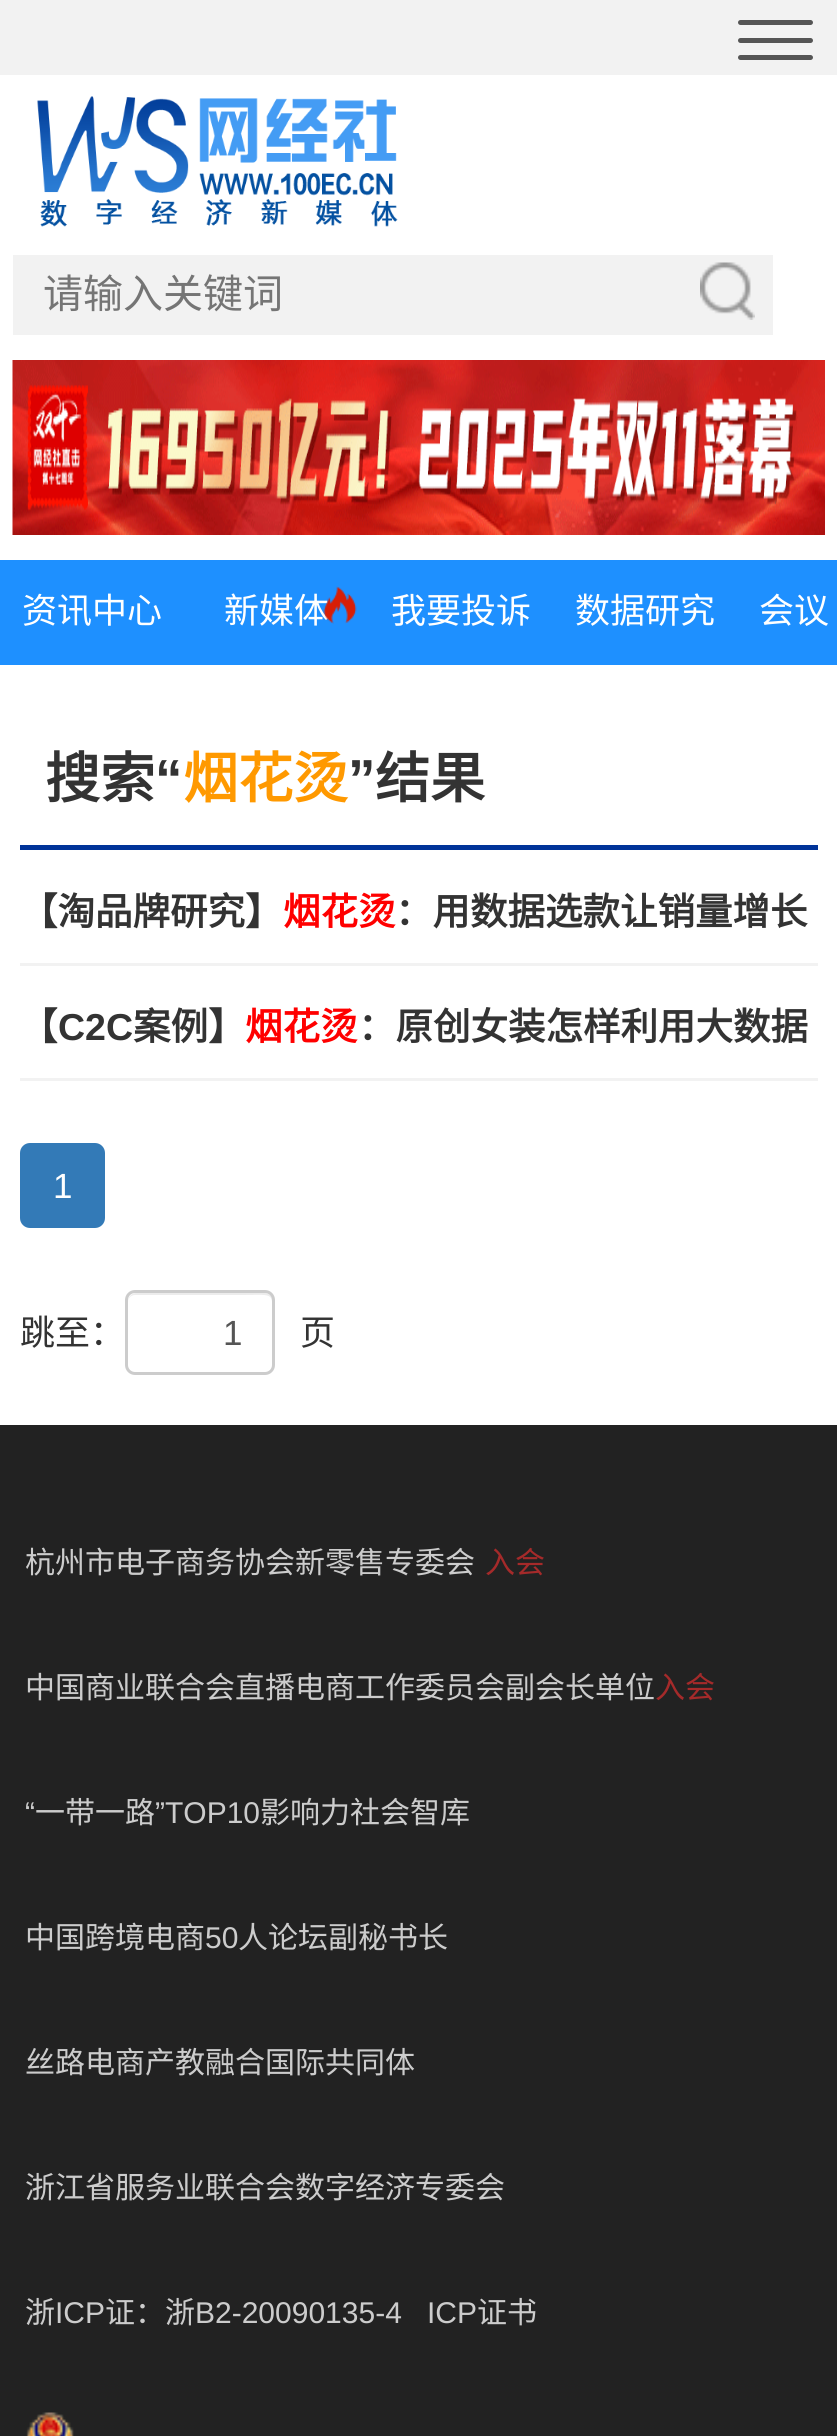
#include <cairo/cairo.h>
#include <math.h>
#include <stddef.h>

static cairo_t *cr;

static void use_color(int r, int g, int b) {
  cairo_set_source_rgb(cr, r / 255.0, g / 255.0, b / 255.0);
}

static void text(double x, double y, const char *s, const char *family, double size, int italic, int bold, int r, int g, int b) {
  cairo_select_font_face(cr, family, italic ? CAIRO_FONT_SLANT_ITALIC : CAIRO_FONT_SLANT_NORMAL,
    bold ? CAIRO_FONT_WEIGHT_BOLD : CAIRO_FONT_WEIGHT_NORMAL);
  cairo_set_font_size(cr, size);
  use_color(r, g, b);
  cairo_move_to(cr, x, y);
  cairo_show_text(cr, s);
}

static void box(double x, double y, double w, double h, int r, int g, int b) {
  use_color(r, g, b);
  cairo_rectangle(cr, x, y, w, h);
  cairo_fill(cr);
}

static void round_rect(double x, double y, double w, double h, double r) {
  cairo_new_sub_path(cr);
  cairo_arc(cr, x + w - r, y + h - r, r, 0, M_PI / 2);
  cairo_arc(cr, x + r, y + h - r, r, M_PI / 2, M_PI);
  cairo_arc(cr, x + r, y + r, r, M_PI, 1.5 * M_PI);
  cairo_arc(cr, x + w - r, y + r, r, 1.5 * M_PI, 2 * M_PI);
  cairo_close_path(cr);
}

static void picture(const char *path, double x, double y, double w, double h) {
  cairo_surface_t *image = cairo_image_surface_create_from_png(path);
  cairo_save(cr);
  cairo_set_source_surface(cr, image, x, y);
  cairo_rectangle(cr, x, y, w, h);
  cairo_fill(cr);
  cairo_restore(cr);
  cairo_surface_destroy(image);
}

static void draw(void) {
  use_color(255, 255, 255);
  cairo_paint(cr);
  box(0, 0, 837, 75, 242, 242, 242);
  use_color(85, 85, 85);
  round_rect(738, 20, 75, 5, 2.5);
  cairo_fill(cr);
  round_rect(738, 38, 75, 5, 2.5);
  cairo_fill(cr);
  round_rect(738, 55, 75, 5, 2.5);
  cairo_fill(cr);
  picture("img_01.png", 37, 96, 361, 131);
  box(13, 255, 760, 80, 242, 242, 242);
  picture("img_02.png", 700, 262, 55, 58);
  picture("img_03.png", 12, 360, 813, 175);
  box(0, 560, 837, 105, 30, 144, 255);
  box(20, 845, 798, 5, 0, 51, 153);
  box(20, 963, 798, 3, 242, 242, 242);
  box(20, 1078, 798, 3, 242, 242, 242);
  use_color(51, 122, 183);
  round_rect(21.5, 1144.5, 82, 82, 8.5);
  cairo_fill_preserve(cr);
  cairo_set_line_width(cr, 3);
  cairo_stroke(cr);
  use_color(236, 236, 236);
  cairo_new_path(cr);
  cairo_move_to(cr, 135, 1295);
  cairo_line_to(cr, 243, 1295);
  cairo_curve_to(cr, 277, 1295, 272, 1291, 272, 1324);
  cairo_line_to(cr, 272, 1369);
  cairo_curve_to(cr, 273, 1368, 273, 1366, 273, 1365);
  cairo_line_to(cr, 273, 1301);
  cairo_curve_to(cr, 273, 1297, 269, 1293, 265, 1293);
  cairo_line_to(cr, 136, 1293);
  cairo_curve_to(cr, 132, 1293, 128, 1297, 128, 1301);
  cairo_line_to(cr, 128, 1302);
  cairo_curve_to(cr, 128, 1298, 131, 1295, 135, 1295);
  cairo_close_path(cr);
  cairo_fill(cr);
  round_rect(126.5, 1291.5, 147, 82, 8.5);
  use_color(204, 204, 204);
  cairo_stroke(cr);
  box(0, 1425, 837, 1011, 34, 34, 34);
  picture("img_05.png", 26, 2412, 48, 24);
  text(43, 308, "请输入关键词", "Noto Sans CJK SC", 40, 0, 0, 117, 117, 117);
  text(22, 623, "资讯中心", "Noto Sans CJK SC", 35, 0, 0, 255, 255, 255);
  text(224, 623, "新媒体", "Noto Sans CJK SC", 35, 0, 0, 255, 255, 255);
  picture("img_04.png", 323, 586, 34, 38);
  text(391, 623, "我要投诉", "Noto Sans CJK SC", 35, 0, 0, 255, 255, 255);
  text(575, 623, "数据研究", "Noto Sans CJK SC", 35, 0, 0, 255, 255, 255);
  text(759, 623, "会议", "Noto Sans CJK SC", 35, 0, 0, 255, 255, 255);
  text(45, 798, "搜索", "Noto Sans CJK SC", 55, 0, 1, 51, 51, 51);
  text(155, 798, "“", "Liberation Sans", 55, 0, 1, 51, 51, 51);
  text(183, 798, "烟花烫", "Noto Sans CJK SC", 55, 0, 1, 255, 153, 0);
  text(348, 798, "”", "Liberation Sans", 55, 0, 1, 51, 51, 51);
  text(375, 798, "结果", "Noto Sans CJK SC", 55, 0, 1, 51, 51, 51);
  text(20, 925, "【淘品牌研究】", "Noto Sans CJK SC", 37.5, 0, 1, 51, 51, 51);
  text(283, 925, "烟花烫", "Noto Sans CJK SC", 37.5, 0, 1, 255, 0, 0);
  text(395, 925, "：用数据选款让销量增长", "Noto Sans CJK SC", 37.5, 0, 1, 51, 51, 51);
  text(20, 1040, "【", "Noto Sans CJK SC", 37.5, 0, 1, 51, 51, 51);
  text(58, 1040, "C2C", "Liberation Sans", 37.5, 0, 1, 51, 51, 51);
  text(133, 1040, "案例】", "Noto Sans CJK SC", 37.5, 0, 1, 51, 51, 51);
  text(245, 1040, "烟花烫", "Noto Sans CJK SC", 37.5, 0, 1, 255, 0, 0);
  text(358, 1040, "：原创女装怎样利用大数据", "Noto Sans CJK SC", 37.5, 0, 1, 51, 51, 51);
  text(53, 1198, "1", "Liberation Sans", 35, 0, 0, 255, 255, 255);
  text(20, 1345, "跳至：", "Noto Sans CJK SC", 35, 0, 0, 51, 51, 51);
  text(223, 1345, "1", "Liberation Sans", 35, 0, 0, 85, 85, 85);
  text(300, 1345, "页", "Noto Sans CJK SC", 35, 0, 0, 51, 51, 51);
  text(25, 1573, "杭州市电子商务协会新零售专委会", "Noto Sans CJK SC", 30, 0, 0, 204, 204, 204);
  text(485, 1573, "入会", "Noto Sans CJK SC", 30, 0, 0, 165, 42, 42);
  text(25, 1698, "中国商业联合会直播电商工作委员会副会长单位", "Noto Sans CJK SC", 30, 0, 0, 204, 204, 204);
  text(655, 1698, "入会", "Noto Sans CJK SC", 30, 0, 0, 165, 42, 42);
  text(25, 1823, "“", "Liberation Sans", 30, 0, 0, 204, 204, 204);
  text(35, 1823, "一带一路", "Noto Sans CJK SC", 30, 0, 0, 204, 204, 204);
  text(155, 1823, "”TOP10", "Liberation Sans", 30, 0, 0, 204, 204, 204);
  text(260, 1823, "影响力社会智库", "Noto Sans CJK SC", 30, 0, 0, 204, 204, 204);
  text(25, 1948, "中国跨境电商", "Noto Sans CJK SC", 30, 0, 0, 204, 204, 204);
  text(205, 1948, "50", "Liberation Sans", 30, 0, 0, 204, 204, 204);
  text(238, 1948, "人论坛副秘书长", "Noto Sans CJK SC", 30, 0, 0, 204, 204, 204);
  text(25, 2073, "丝路电商产教融合国际共同体", "Noto Sans CJK SC", 30, 0, 0, 204, 204, 204);
  text(25, 2198, "浙江省服务业联合会数字经济专委会", "Noto Sans CJK SC", 30, 0, 0, 204, 204, 204);
  text(25, 2323, "浙", "Noto Sans CJK SC", 30, 0, 0, 204, 204, 204);
  text(55, 2323, "ICP", "Liberation Sans", 30, 0, 0, 204, 204, 204);
  text(105, 2323, "证：浙", "Noto Sans CJK SC", 30, 0, 0, 204, 204, 204);
  text(195, 2323, "B2-20090135-4", "Liberation Sans", 30, 0, 0, 204, 204, 204);
  text(427, 2323, "ICP", "Liberation Sans", 30, 0, 0, 204, 204, 204);
  text(477, 2323, "证书", "Noto Sans CJK SC", 30, 0, 0, 204, 204, 204);
}

int main(void) {
  cairo_surface_t *surface = cairo_image_surface_create(CAIRO_FORMAT_RGB24, 837, 2436);
  cr = cairo_create(surface);
  cairo_font_options_t *options = cairo_font_options_create();
  cairo_font_options_set_hint_metrics(options, CAIRO_HINT_METRICS_OFF);
  cairo_font_options_set_hint_style(options, CAIRO_HINT_STYLE_NONE);
  cairo_set_font_options(cr, options);
  cairo_set_miter_limit(cr, 4);
  draw();
  cairo_surface_write_to_png(surface, "out.png");
  cairo_font_options_destroy(options);
  cairo_destroy(cr);
  cairo_surface_destroy(surface);
  return 0;
}
